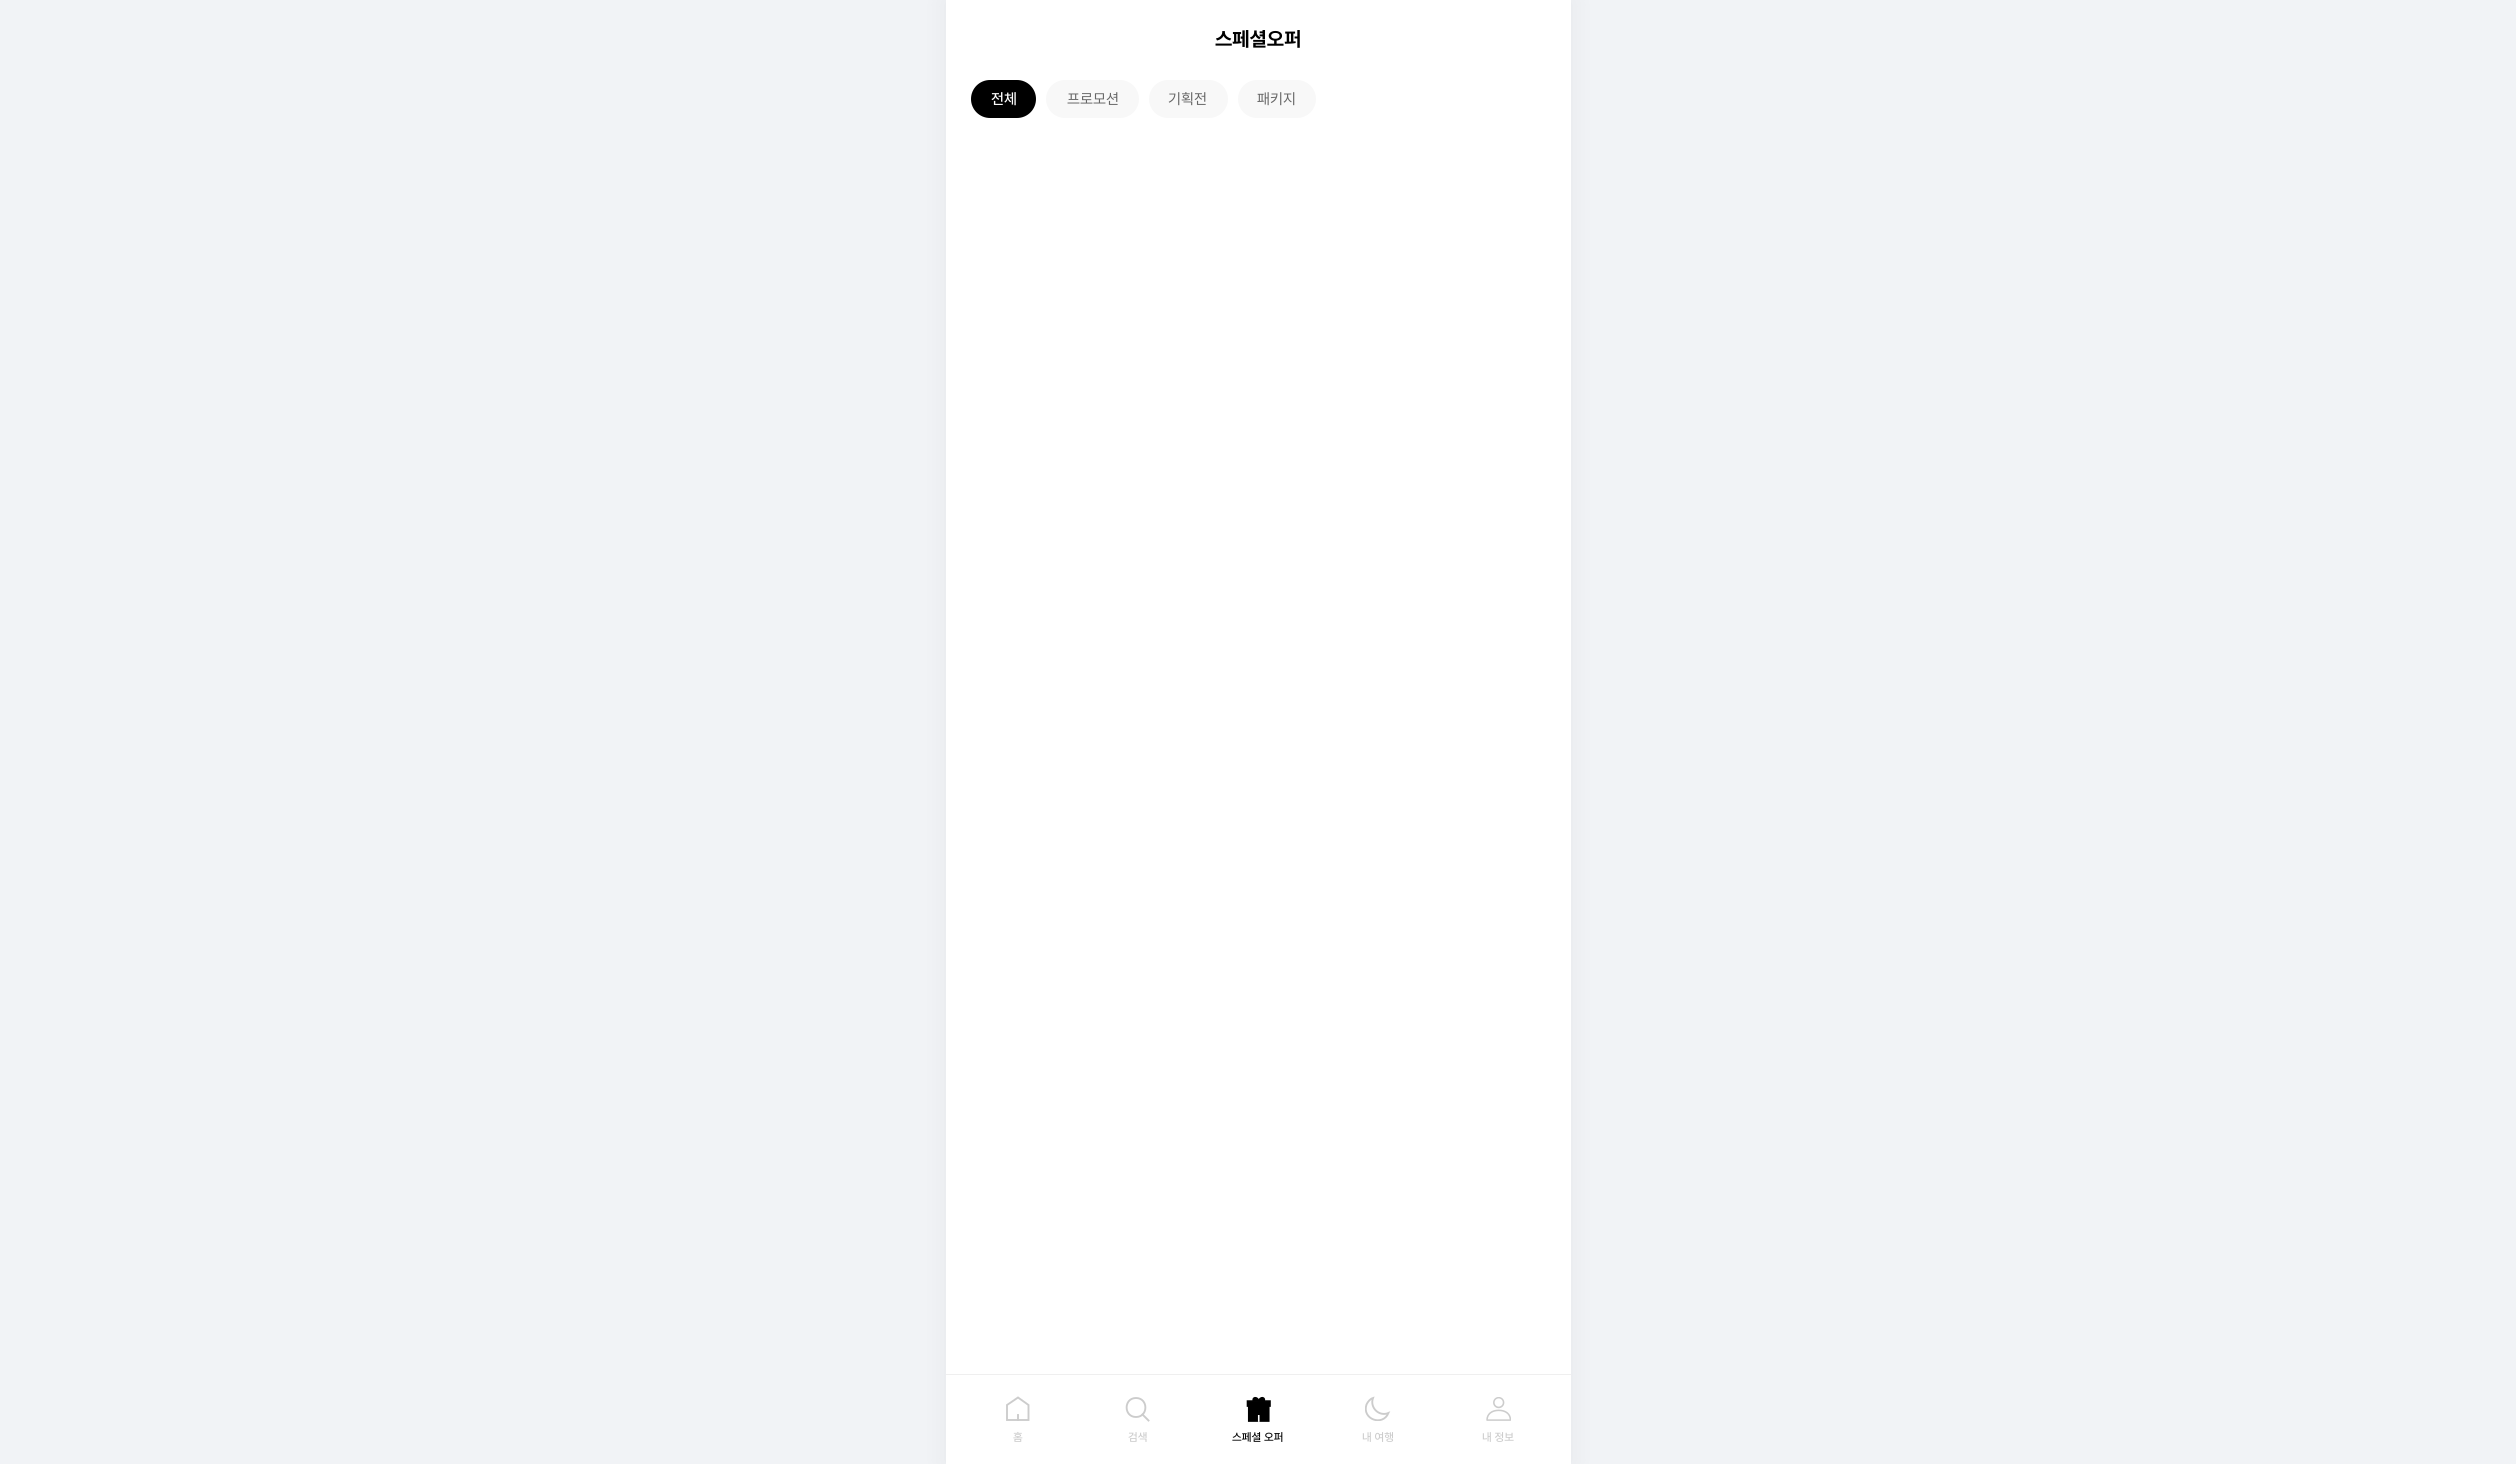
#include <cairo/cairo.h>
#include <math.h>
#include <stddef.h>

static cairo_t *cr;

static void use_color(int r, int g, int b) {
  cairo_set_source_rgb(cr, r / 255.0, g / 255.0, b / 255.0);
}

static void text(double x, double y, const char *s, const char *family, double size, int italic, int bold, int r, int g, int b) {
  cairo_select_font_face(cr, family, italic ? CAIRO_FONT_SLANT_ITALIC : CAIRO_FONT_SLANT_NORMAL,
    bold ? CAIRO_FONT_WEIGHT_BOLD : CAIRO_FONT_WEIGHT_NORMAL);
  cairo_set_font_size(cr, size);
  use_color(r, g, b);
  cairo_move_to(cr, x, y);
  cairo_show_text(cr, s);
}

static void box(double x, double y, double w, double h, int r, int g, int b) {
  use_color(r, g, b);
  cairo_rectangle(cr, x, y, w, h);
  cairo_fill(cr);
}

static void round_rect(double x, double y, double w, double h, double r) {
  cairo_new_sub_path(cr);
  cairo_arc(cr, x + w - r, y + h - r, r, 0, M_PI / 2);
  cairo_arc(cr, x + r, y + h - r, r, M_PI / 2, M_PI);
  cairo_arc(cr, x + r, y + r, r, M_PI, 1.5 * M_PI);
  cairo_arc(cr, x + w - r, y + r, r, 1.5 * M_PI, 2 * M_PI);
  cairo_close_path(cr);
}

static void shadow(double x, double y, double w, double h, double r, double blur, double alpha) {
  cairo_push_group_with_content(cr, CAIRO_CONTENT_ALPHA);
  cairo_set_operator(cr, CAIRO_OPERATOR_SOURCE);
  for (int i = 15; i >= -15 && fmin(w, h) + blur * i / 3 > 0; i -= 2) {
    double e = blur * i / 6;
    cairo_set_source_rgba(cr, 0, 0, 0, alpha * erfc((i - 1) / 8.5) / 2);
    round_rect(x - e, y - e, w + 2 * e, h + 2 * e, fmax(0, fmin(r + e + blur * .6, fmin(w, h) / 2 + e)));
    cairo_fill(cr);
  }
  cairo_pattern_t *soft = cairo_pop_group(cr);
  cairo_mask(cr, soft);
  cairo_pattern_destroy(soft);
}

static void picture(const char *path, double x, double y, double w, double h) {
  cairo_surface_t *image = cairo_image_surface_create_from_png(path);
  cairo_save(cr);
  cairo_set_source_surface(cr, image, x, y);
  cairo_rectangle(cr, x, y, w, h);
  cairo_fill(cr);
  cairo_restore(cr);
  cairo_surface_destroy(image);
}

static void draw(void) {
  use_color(241, 243, 246);
  cairo_paint(cr);
  use_color(0, 0, 0);
  shadow(946, 0, 625, 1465, 0, 12.5, 0.05);
  box(946, 0, 625, 1464, 255, 255, 255);
  use_color(0, 0, 0);
  round_rect(971, 80, 65, 38, 19);
  cairo_fill(cr);
  use_color(248, 248, 248);
  round_rect(1046, 80, 93, 38, 19);
  cairo_fill(cr);
  round_rect(1149, 80, 79, 38, 19);
  cairo_fill(cr);
  round_rect(1238, 80, 78, 38, 19);
  cairo_fill(cr);
  box(946, 1374, 625, 1, 239, 239, 239);
  cairo_new_path(cr);
  cairo_move_to(cr, 1028.5, 1420);
  cairo_line_to(cr, 1007, 1420);
  cairo_line_to(cr, 1007, 1405);
  cairo_line_to(cr, 1018, 1397.5);
  cairo_line_to(cr, 1028.5, 1405);
  cairo_close_path(cr);
  use_color(204, 204, 204);
  cairo_set_line_width(cr, 1.9);
  cairo_stroke(cr);
  cairo_new_path(cr);
  cairo_move_to(cr, 1018, 1420);
  cairo_line_to(cr, 1018, 1415);
  cairo_set_line_cap(cr, CAIRO_LINE_CAP_SQUARE);
  cairo_stroke(cr);
  cairo_new_path(cr);
  cairo_move_to(cr, 1136, 1417);
  cairo_curve_to(cr, 1148.5, 1417, 1148.5, 1398, 1136, 1398);
  cairo_curve_to(cr, 1123.5, 1398, 1123.5, 1417, 1136, 1417);
  cairo_close_path(cr);
  cairo_set_line_cap(cr, CAIRO_LINE_CAP_ROUND);
  cairo_set_line_join(cr, CAIRO_LINE_JOIN_ROUND);
  cairo_stroke(cr);
  cairo_new_path(cr);
  cairo_move_to(cr, 1148.5, 1420.5);
  cairo_line_to(cr, 1142.5, 1414.5);
  cairo_set_line_cap(cr, CAIRO_LINE_CAP_SQUARE);
  cairo_stroke(cr);
  picture("img_01.png", 1246, 1396, 25, 26);
  cairo_save(cr);
  cairo_rectangle(cr, 1365, 1396, 26, 25);
  cairo_clip(cr);
  cairo_new_path(cr);
  cairo_move_to(cr, 1388.5, 1413);
  cairo_curve_to(cr, 1382.5, 1427, 1361.5, 1419, 1366.5, 1404.5);
  cairo_curve_to(cr, 1368, 1401.5, 1370, 1399, 1373, 1398);
  cairo_curve_to(cr, 1369.5, 1407.5, 1379, 1417, 1388.5, 1413);
  cairo_close_path(cr);
  cairo_set_line_cap(cr, CAIRO_LINE_CAP_ROUND);
  cairo_set_line_join(cr, CAIRO_LINE_JOIN_MITER);
  cairo_stroke(cr);
  cairo_restore(cr);
  picture("img_02.png", 1486, 1397, 25, 24);
  text(1215, 46, "스페셜오퍼", "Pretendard", 20, 0, 1, 0, 0, 0);
  text(991, 104, "전체", "Pretendard Medium", 15, 0, 0, 255, 255, 255);
  text(1067, 104, "프로모션", "Pretendard", 15, 0, 0, 102, 102, 102);
  text(1168, 104, "기획전", "Pretendard", 15, 0, 0, 102, 102, 102);
  text(1257, 104, "패키지", "Pretendard", 15, 0, 0, 102, 102, 102);
  text(1013, 1441, "홈", "Pretendard Medium", 11.25, 0, 0, 204, 204, 204);
  text(1128, 1441, "검색", "Pretendard Medium", 11.25, 0, 0, 204, 204, 204);
  text(1232, 1441, "스페셜 오퍼", "Pretendard Medium", 11.25, 0, 0, 0, 0, 0);
  text(1362, 1441, "내 여행", "Pretendard Medium", 11.25, 0, 0, 204, 204, 204);
  text(1482, 1441, "내 정보", "Pretendard Medium", 11.25, 0, 0, 204, 204, 204);
}

int main(void) {
  cairo_surface_t *surface = cairo_image_surface_create(CAIRO_FORMAT_RGB24, 2516, 1464);
  cr = cairo_create(surface);
  cairo_font_options_t *options = cairo_font_options_create();
  cairo_font_options_set_hint_metrics(options, CAIRO_HINT_METRICS_OFF);
  cairo_font_options_set_hint_style(options, CAIRO_HINT_STYLE_NONE);
  cairo_set_font_options(cr, options);
  cairo_set_miter_limit(cr, 4);
  draw();
  cairo_surface_write_to_png(surface, "out.png");
  cairo_font_options_destroy(options);
  cairo_destroy(cr);
  cairo_surface_destroy(surface);
  return 0;
}
